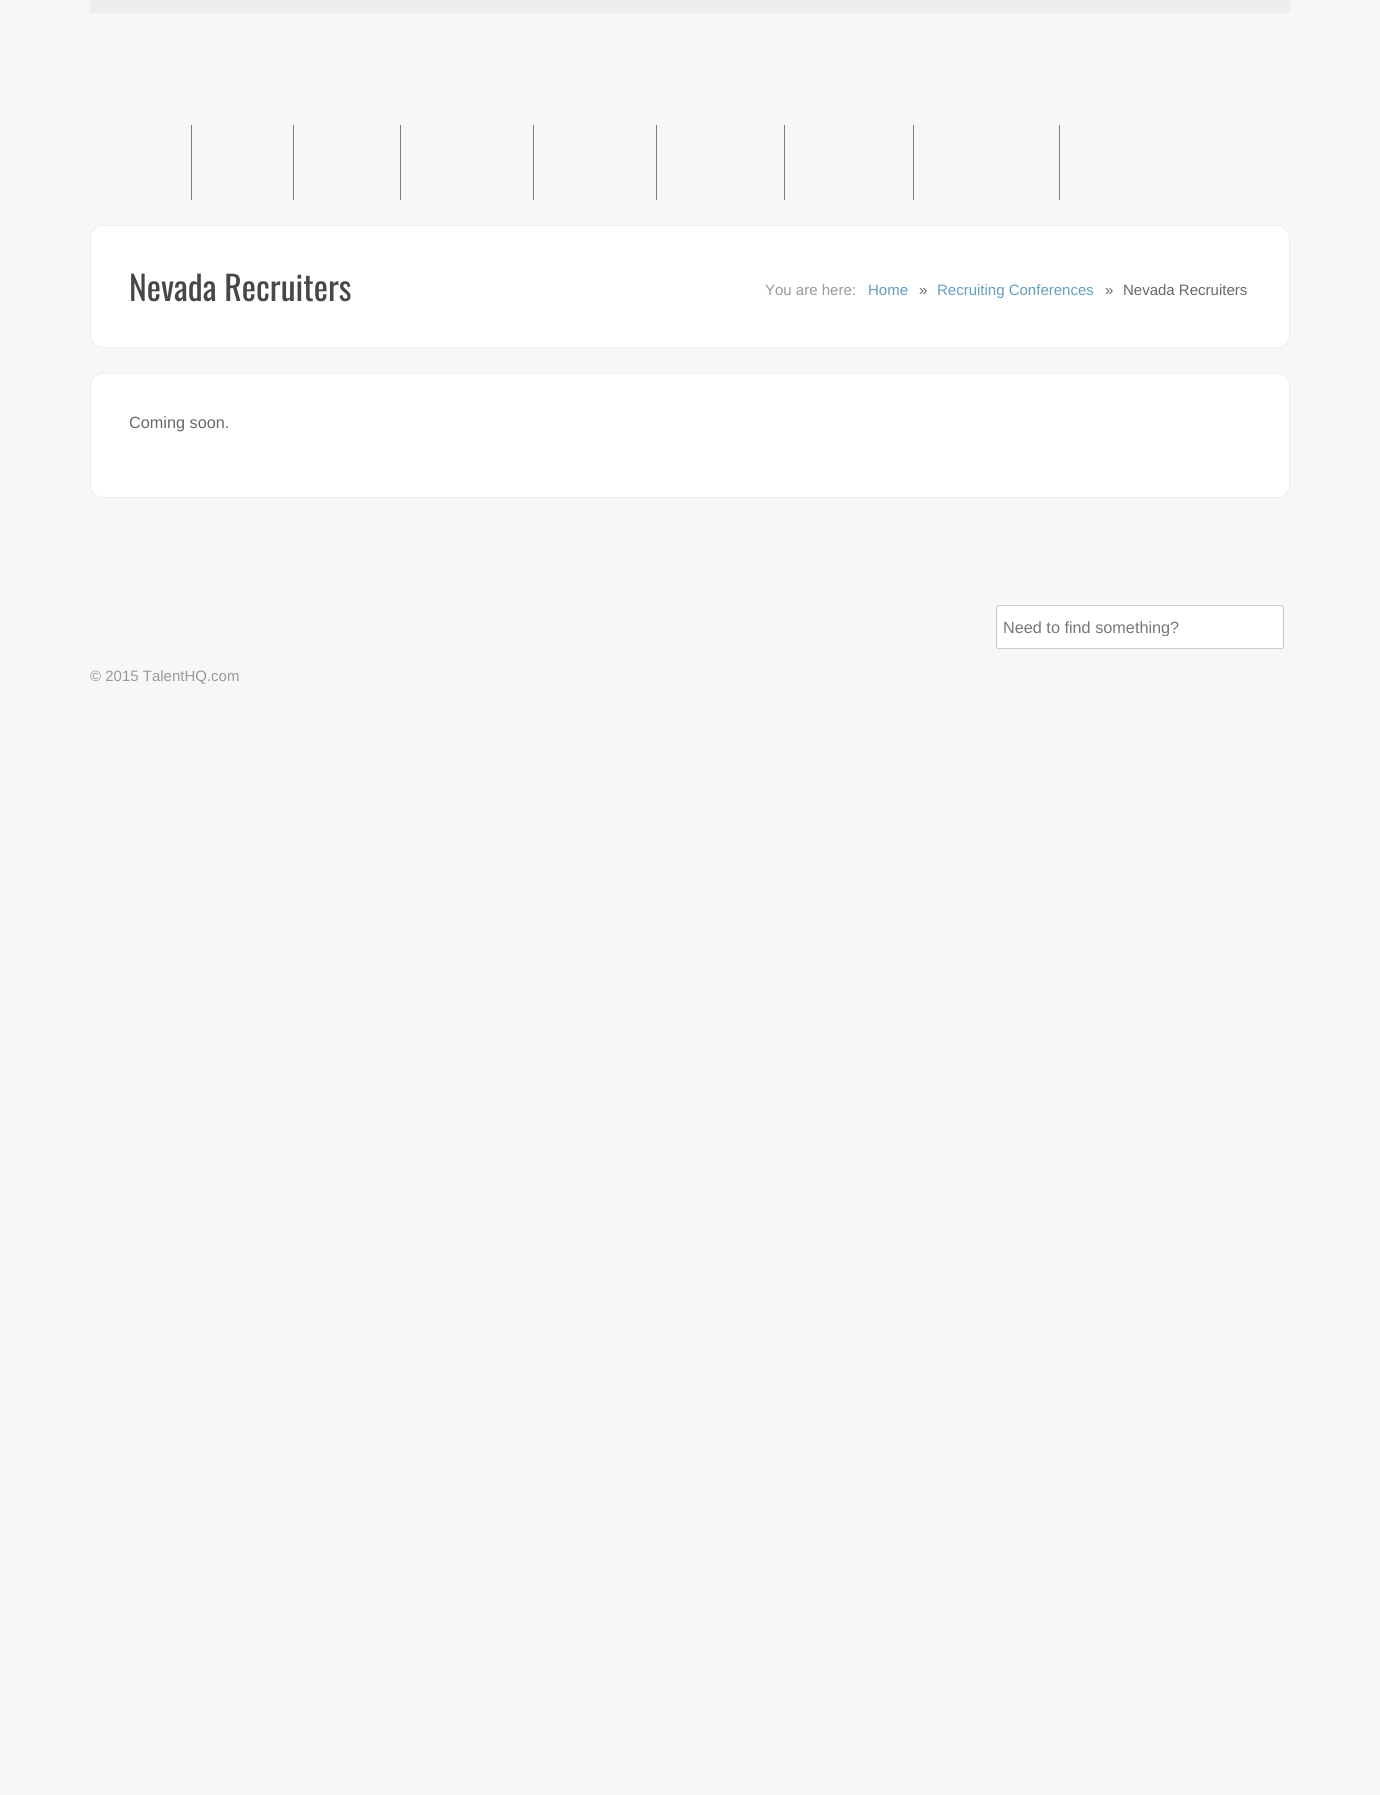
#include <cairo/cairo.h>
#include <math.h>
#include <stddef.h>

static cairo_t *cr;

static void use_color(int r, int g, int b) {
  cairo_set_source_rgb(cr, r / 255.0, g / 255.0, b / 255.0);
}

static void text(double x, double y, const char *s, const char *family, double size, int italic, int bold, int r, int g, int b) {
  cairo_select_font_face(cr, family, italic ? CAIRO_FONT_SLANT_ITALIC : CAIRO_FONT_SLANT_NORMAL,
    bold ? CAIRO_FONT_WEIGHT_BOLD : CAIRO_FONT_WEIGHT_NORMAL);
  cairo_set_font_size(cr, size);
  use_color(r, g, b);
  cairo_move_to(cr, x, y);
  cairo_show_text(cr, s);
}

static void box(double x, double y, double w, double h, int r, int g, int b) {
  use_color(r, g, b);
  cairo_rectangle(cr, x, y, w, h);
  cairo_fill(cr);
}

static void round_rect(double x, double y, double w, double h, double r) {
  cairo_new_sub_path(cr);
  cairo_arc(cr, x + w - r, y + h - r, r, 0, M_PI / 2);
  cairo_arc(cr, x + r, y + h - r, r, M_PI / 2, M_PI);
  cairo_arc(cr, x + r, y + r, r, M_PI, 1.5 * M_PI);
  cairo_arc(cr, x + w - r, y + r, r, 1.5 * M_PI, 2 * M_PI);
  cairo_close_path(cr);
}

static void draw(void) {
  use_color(247, 247, 247);
  cairo_paint(cr);
  box(90, 0, 1200, 13, 238, 238, 238);
  box(191, 125, 1, 75, 124, 124, 124);
  box(293, 125, 1, 75, 124, 124, 124);
  box(400, 125, 1, 75, 124, 124, 124);
  box(533, 125, 1, 75, 124, 124, 124);
  box(656, 125, 1, 75, 124, 124, 124);
  box(784, 125, 1, 75, 124, 124, 124);
  box(913, 125, 1, 75, 124, 124, 124);
  box(1059, 125, 1, 75, 124, 124, 124);
  use_color(255, 255, 255);
  round_rect(90.5, 225.5, 1199, 122, 12.5);
  cairo_fill_preserve(cr);
  use_color(238, 238, 238);
  cairo_set_line_width(cr, 1);
  cairo_stroke(cr);
  use_color(255, 255, 255);
  round_rect(90.5, 373.5, 1199, 124, 12.5);
  cairo_fill_preserve(cr);
  use_color(238, 238, 238);
  cairo_stroke(cr);
  use_color(255, 255, 255);
  round_rect(996.5, 605.5, 287, 43, 2);
  cairo_fill_preserve(cr);
  use_color(204, 204, 204);
  cairo_stroke(cr);
  text(129, 301, "Nevada Recruiters", "Oswald", 33.75, 0, 0, 71, 71, 71);
  text(765, 295, "You are here:", "Liberation Sans", 15, 0, 0, 153, 153, 153);
  text(868, 295, "Home", "Liberation Sans", 15, 0, 0, 100, 158, 191);
  text(919, 295, "»", "Liberation Sans", 15, 0, 0, 103, 103, 103);
  text(937, 295, "Recruiting Conferences", "Liberation Sans", 15, 0, 0, 100, 158, 191);
  text(1105, 295, "»", "Liberation Sans", 15, 0, 0, 103, 103, 103);
  text(1123, 295, "Nevada Recruiters", "Liberation Sans", 15, 0, 0, 103, 103, 103);
  text(129, 428, "Coming soon.", "Liberation Sans", 16.25, 0, 0, 103, 103, 103);
  cairo_save(cr);
  cairo_rectangle(cr, 1003, 618, 275, 18);
  cairo_clip(cr);
  text(1003, 633, "Need to find something?", "Liberation Sans", 16.25, 0, 0, 119, 119, 119);
  cairo_restore(cr);
  text(90, 681, "© 2015 TalentHQ.com", "Liberation Sans", 15, 0, 0, 153, 153, 153);
}

int main(void) {
  cairo_surface_t *surface = cairo_image_surface_create(CAIRO_FORMAT_RGB24, 1380, 1795);
  cr = cairo_create(surface);
  cairo_font_options_t *options = cairo_font_options_create();
  cairo_font_options_set_hint_metrics(options, CAIRO_HINT_METRICS_OFF);
  cairo_font_options_set_hint_style(options, CAIRO_HINT_STYLE_NONE);
  cairo_set_font_options(cr, options);
  cairo_set_miter_limit(cr, 4);
  draw();
  cairo_surface_write_to_png(surface, "out.png");
  cairo_font_options_destroy(options);
  cairo_destroy(cr);
  cairo_surface_destroy(surface);
  return 0;
}
